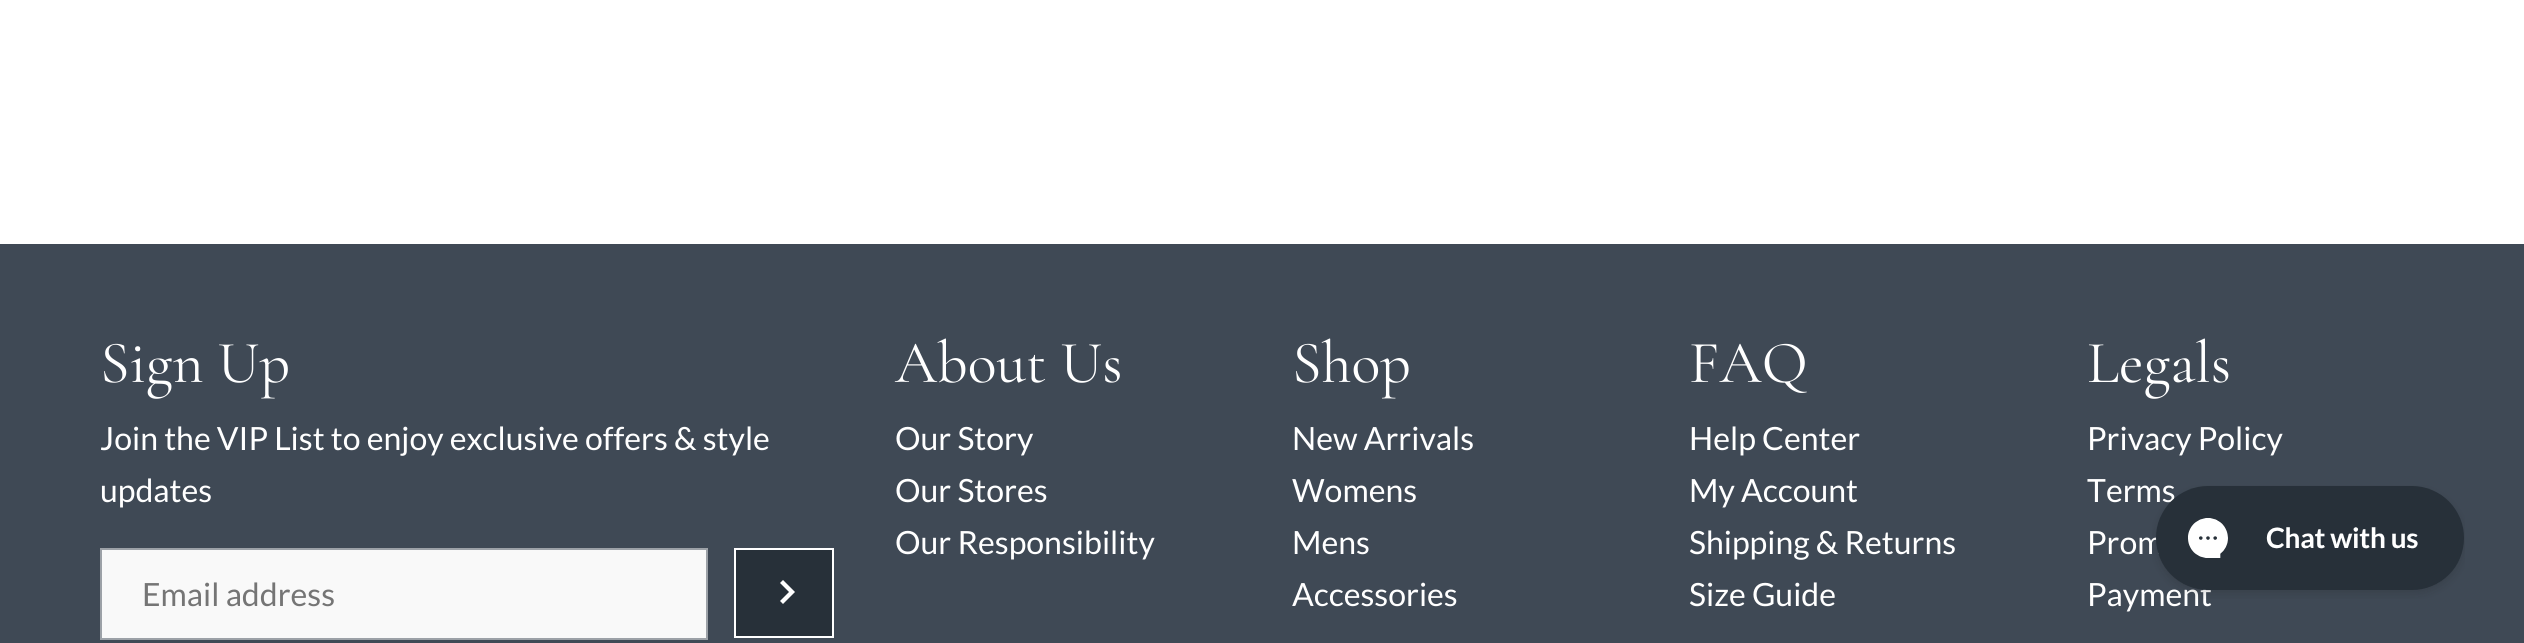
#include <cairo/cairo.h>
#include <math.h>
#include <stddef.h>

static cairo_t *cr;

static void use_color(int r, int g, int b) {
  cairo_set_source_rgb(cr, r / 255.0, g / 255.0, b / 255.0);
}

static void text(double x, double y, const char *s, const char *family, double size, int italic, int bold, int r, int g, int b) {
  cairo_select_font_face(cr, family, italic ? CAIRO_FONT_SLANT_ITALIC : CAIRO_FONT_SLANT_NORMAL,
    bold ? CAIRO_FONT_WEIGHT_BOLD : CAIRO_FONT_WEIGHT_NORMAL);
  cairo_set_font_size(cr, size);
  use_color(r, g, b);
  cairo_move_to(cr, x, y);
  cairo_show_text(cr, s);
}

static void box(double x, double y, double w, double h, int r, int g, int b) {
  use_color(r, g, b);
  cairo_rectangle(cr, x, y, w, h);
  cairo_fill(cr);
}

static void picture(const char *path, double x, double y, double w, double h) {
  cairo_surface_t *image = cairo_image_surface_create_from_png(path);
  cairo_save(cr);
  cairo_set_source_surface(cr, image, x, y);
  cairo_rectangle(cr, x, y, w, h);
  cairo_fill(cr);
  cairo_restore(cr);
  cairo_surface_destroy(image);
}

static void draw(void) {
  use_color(255, 255, 255);
  cairo_paint(cr);
  box(0, 244, 2524, 399, 63, 73, 85);
  use_color(249, 249, 249);
  cairo_rectangle(cr, 101, 549, 606, 90);
  cairo_fill_preserve(cr);
  use_color(156, 161, 167);
  cairo_stroke(cr);
  use_color(39, 48, 57);
  cairo_rectangle(cr, 735, 549, 98, 88);
  cairo_fill_preserve(cr);
  use_color(255, 255, 255);
  cairo_stroke(cr);
  cairo_new_path(cr);
  cairo_move_to(cr, 780, 601);
  cairo_line_to(cr, 789, 592);
  cairo_line_to(cr, 780, 583);
  cairo_line_to(cr, 783, 580);
  cairo_line_to(cr, 795, 592);
  cairo_line_to(cr, 783, 604);
  cairo_close_path(cr);
  cairo_fill(cr);
  text(100, 382, "Sign Up", "Cormorant Garamond Light", 60, 0, 0, 255, 255, 255);
  text(100, 450, "Join the VIP List to enjoy exclusive offers & style", "Lato", 32, 0, 0, 255, 255, 255);
  text(100, 502, "updates", "Lato", 32, 0, 0, 255, 255, 255);
  text(142, 606, "Email address", "Lato", 32, 0, 0, 117, 117, 117);
  text(895, 382, "About Us", "Cormorant Garamond Light", 60, 0, 0, 255, 255, 255);
  text(895, 450, "Our Story", "Lato", 32, 0, 0, 255, 255, 255);
  text(895, 502, "Our Stores", "Lato", 32, 0, 0, 255, 255, 255);
  text(895, 554, "Our Responsibility", "Lato", 32, 0, 0, 255, 255, 255);
  text(1292, 382, "Shop", "Cormorant Garamond Light", 60, 0, 0, 255, 255, 255);
  text(1292, 450, "New Arrivals", "Lato", 32, 0, 0, 255, 255, 255);
  text(1292, 502, "Womens", "Lato", 32, 0, 0, 255, 255, 255);
  text(1292, 554, "Mens", "Lato", 32, 0, 0, 255, 255, 255);
  text(1292, 606, "Accessories", "Lato", 32, 0, 0, 255, 255, 255);
  text(1689, 382, "FAQ", "Cormorant Garamond Light", 60, 0, 0, 255, 255, 255);
  text(1689, 450, "Help Center", "Lato", 32, 0, 0, 255, 255, 255);
  text(1689, 502, "My Account", "Lato", 32, 0, 0, 255, 255, 255);
  text(1689, 554, "Shipping & Returns", "Lato", 32, 0, 0, 255, 255, 255);
  text(1689, 606, "Size Guide", "Lato", 32, 0, 0, 255, 255, 255);
  text(2087, 382, "Legals", "Cormorant Garamond Light", 60, 0, 0, 255, 255, 255);
  text(2087, 450, "Privacy Policy", "Lato", 32, 0, 0, 255, 255, 255);
  text(2087, 502, "Terms", "Lato", 32, 0, 0, 255, 255, 255);
  text(2087, 554, "Prom", "Lato", 32, 0, 0, 255, 255, 255);
  text(2087, 606, "Payment", "Lato", 32, 0, 0, 255, 255, 255);
  picture("img_01.png", 2152, 485, 313, 114);
}

int main(void) {
  cairo_surface_t *surface = cairo_image_surface_create(CAIRO_FORMAT_RGB24, 2524, 643);
  cr = cairo_create(surface);
  cairo_font_options_t *options = cairo_font_options_create();
  cairo_font_options_set_hint_metrics(options, CAIRO_HINT_METRICS_OFF);
  cairo_font_options_set_hint_style(options, CAIRO_HINT_STYLE_NONE);
  cairo_set_font_options(cr, options);
  cairo_set_miter_limit(cr, 4);
  draw();
  cairo_surface_write_to_png(surface, "out.png");
  cairo_font_options_destroy(options);
  cairo_destroy(cr);
  cairo_surface_destroy(surface);
  return 0;
}
